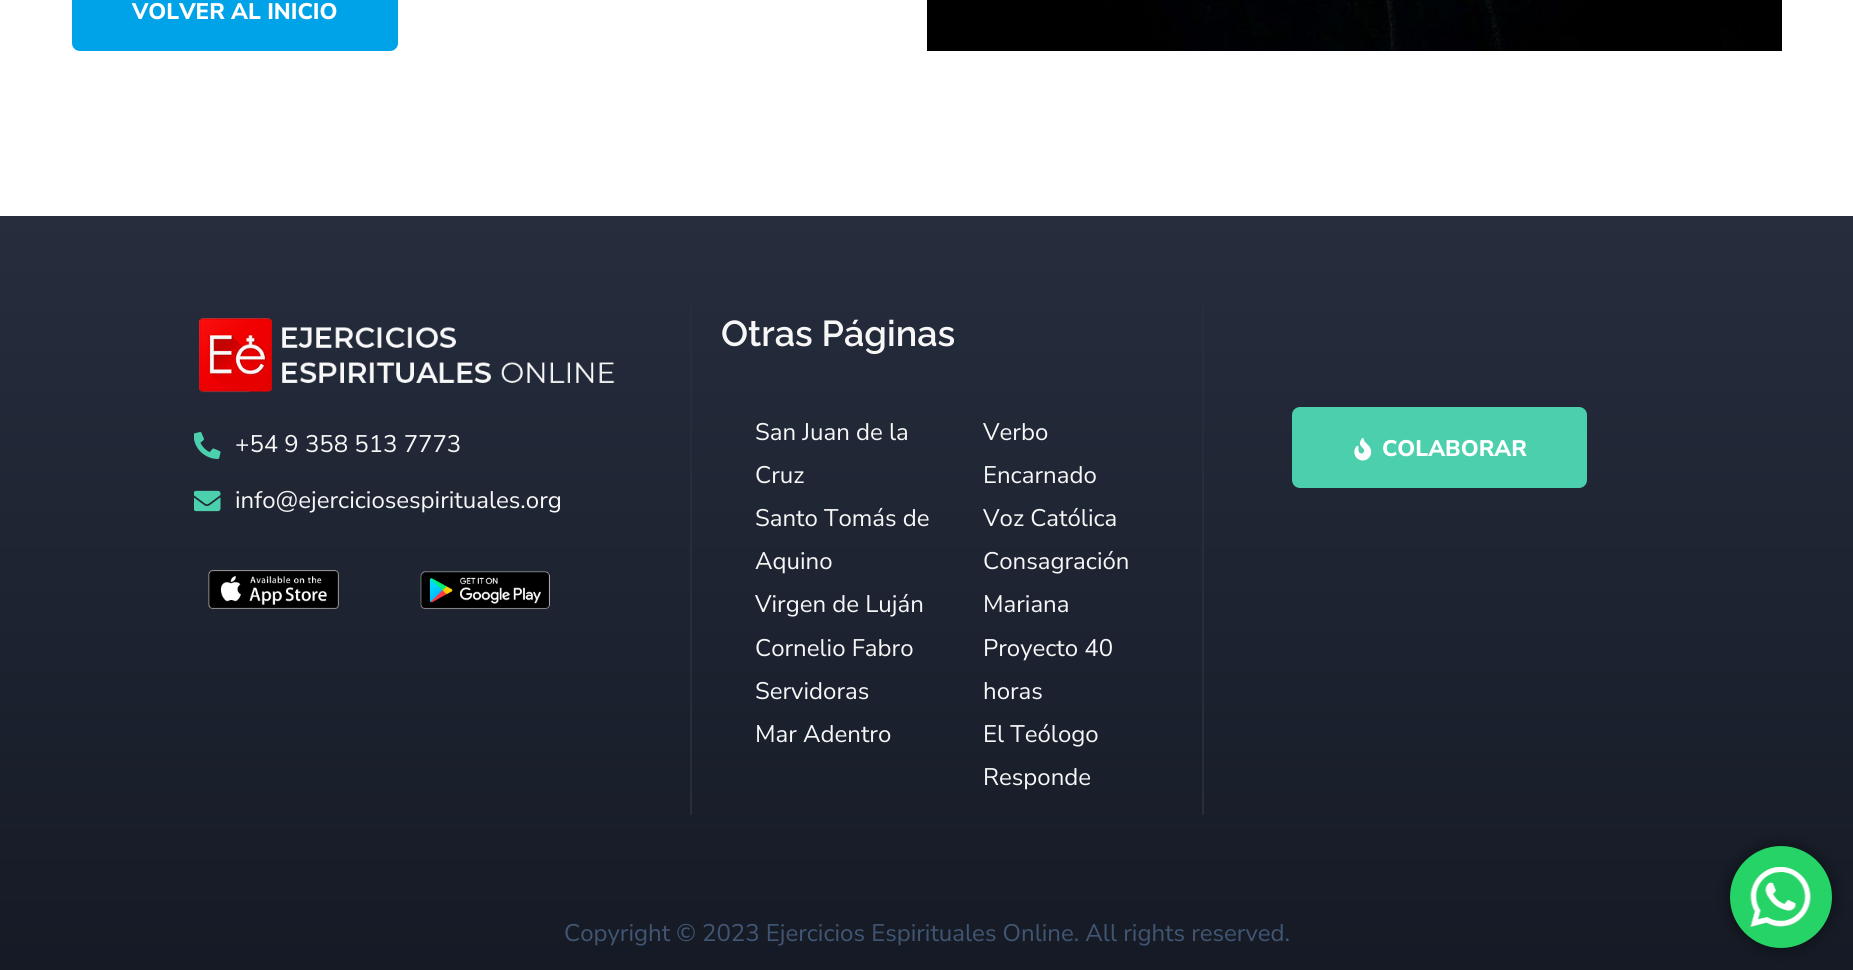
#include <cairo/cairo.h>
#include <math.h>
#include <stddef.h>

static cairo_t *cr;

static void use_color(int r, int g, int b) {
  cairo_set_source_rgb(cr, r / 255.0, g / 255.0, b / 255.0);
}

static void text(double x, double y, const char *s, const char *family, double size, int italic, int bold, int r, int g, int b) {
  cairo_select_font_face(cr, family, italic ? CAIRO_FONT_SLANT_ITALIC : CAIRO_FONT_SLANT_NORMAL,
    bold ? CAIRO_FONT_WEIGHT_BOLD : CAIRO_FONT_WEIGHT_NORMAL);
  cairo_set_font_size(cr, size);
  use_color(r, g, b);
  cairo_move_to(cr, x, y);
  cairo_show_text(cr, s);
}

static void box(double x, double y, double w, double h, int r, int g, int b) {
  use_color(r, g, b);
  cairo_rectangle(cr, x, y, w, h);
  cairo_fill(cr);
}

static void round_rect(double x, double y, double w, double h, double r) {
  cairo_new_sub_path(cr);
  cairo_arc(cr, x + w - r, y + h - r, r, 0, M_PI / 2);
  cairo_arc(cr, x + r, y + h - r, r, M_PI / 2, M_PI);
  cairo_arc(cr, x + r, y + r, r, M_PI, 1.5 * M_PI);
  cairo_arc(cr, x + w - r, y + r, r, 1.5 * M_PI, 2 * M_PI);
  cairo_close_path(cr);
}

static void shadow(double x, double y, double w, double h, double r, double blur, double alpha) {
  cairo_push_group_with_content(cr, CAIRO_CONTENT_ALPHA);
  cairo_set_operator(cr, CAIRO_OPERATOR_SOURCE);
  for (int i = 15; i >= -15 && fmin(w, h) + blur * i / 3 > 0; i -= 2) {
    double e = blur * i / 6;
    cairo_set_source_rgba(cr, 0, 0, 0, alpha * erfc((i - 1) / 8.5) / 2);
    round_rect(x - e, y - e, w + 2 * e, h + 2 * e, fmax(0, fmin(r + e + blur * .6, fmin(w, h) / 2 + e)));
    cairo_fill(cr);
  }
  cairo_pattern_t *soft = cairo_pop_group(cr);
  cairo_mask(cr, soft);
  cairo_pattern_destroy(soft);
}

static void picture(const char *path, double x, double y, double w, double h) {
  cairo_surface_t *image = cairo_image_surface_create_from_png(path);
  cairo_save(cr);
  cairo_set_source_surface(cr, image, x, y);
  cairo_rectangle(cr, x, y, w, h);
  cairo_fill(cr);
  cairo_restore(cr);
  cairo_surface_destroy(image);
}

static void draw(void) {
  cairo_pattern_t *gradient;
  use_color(255, 255, 255);
  cairo_paint(cr);
  use_color(0, 162, 232);
  round_rect(72, -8, 326, 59, 8);
  cairo_fill(cr);
  picture("img_01.png", 927, 0, 855, 51);
  gradient = cairo_pattern_create_linear(927, 216, 927, 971);
  cairo_pattern_add_color_stop_rgba(gradient, 0, 0.149, 0.176, 0.239, 1);
  cairo_pattern_add_color_stop_rgba(gradient, 1, 0.082, 0.102, 0.145, 1);
  cairo_set_source(cr, gradient);
  cairo_pattern_destroy(gradient);
  cairo_rectangle(cr, 0, 216, 1853, 754);
  cairo_fill(cr);
  picture("img_02.png", 199, 318, 416, 75);
  picture("img_03.png", 194, 432, 27, 27);
  picture("img_04.png", 194, 490, 27, 22);
  picture("img_05.png", 208, 570, 131, 39);
  picture("img_06.png", 420, 571, 130, 38);
  box(690, 302, 2, 513, 38, 45, 61);
  box(1202, 302, 2, 513, 38, 45, 61);
  use_color(76, 207, 173);
  round_rect(1292, 407, 295, 81, 8);
  cairo_fill(cr);
  picture("img_07.png", 1354, 438, 18, 23);
  use_color(0, 0, 0);
  shadow(1730, 846, 102, 102, 51, 8, 0.5);
  use_color(37, 211, 102);
  cairo_arc(cr, 1781, 897, 51, 0, 2 * M_PI);
  cairo_fill(cr);
  picture("img_08.png", 1750, 867, 61, 60);
  text(132, 19, "VOLVER AL INICIO", "Nunito Sans ExtraBold", 22.5, 0, 0, 255, 255, 255);
  text(235, 452, "+54 9 358 513 7773", "Nunito Sans", 24, 0, 0, 247, 247, 247);
  text(235, 508, "info@ejerciciosespirituales.org", "Nunito Sans", 24, 0, 0, 247, 247, 247);
  text(721, 346, "Otras Páginas", "Raleway SemiBold", 36, 0, 0, 247, 247, 247);
  text(755, 440, "San Juan de la", "Nunito Sans", 24, 0, 0, 247, 247, 247);
  text(755, 483, "Cruz", "Nunito Sans", 24, 0, 0, 247, 247, 247);
  text(755, 526, "Santo Tomás de", "Nunito Sans", 24, 0, 0, 247, 247, 247);
  text(755, 569, "Aquino", "Nunito Sans", 24, 0, 0, 247, 247, 247);
  text(755, 612, "Virgen de Luján", "Nunito Sans", 24, 0, 0, 247, 247, 247);
  text(755, 656, "Cornelio Fabro", "Nunito Sans", 24, 0, 0, 247, 247, 247);
  text(755, 699, "Servidoras", "Nunito Sans", 24, 0, 0, 247, 247, 247);
  text(755, 742, "Mar Adentro", "Nunito Sans", 24, 0, 0, 247, 247, 247);
  text(983, 440, "Verbo", "Nunito Sans", 24, 0, 0, 247, 247, 247);
  text(983, 483, "Encarnado", "Nunito Sans", 24, 0, 0, 247, 247, 247);
  text(983, 526, "Voz Católica", "Nunito Sans", 24, 0, 0, 247, 247, 247);
  text(983, 569, "Consagración", "Nunito Sans", 24, 0, 0, 247, 247, 247);
  text(983, 612, "Mariana", "Nunito Sans", 24, 0, 0, 247, 247, 247);
  text(983, 656, "Proyecto 40", "Nunito Sans", 24, 0, 0, 247, 247, 247);
  text(983, 699, "horas", "Nunito Sans", 24, 0, 0, 247, 247, 247);
  text(983, 742, "El Teólogo", "Nunito Sans", 24, 0, 0, 247, 247, 247);
  text(983, 785, "Responde", "Nunito Sans", 24, 0, 0, 247, 247, 247);
  text(1382, 456, "COLABORAR", "Nunito Sans ExtraBold", 22.5, 0, 0, 255, 255, 255);
  text(564, 941, "Copyright © 2023 Ejercicios Espirituales Online. All rights reserved.", "Nunito Sans", 24, 0, 0, 65, 86, 116);
}

int main(void) {
  cairo_surface_t *surface = cairo_image_surface_create(CAIRO_FORMAT_RGB24, 1853, 970);
  cr = cairo_create(surface);
  cairo_font_options_t *options = cairo_font_options_create();
  cairo_font_options_set_hint_metrics(options, CAIRO_HINT_METRICS_OFF);
  cairo_font_options_set_hint_style(options, CAIRO_HINT_STYLE_NONE);
  cairo_set_font_options(cr, options);
  cairo_set_miter_limit(cr, 4);
  draw();
  cairo_surface_write_to_png(surface, "out.png");
  cairo_font_options_destroy(options);
  cairo_destroy(cr);
  cairo_surface_destroy(surface);
  return 0;
}
